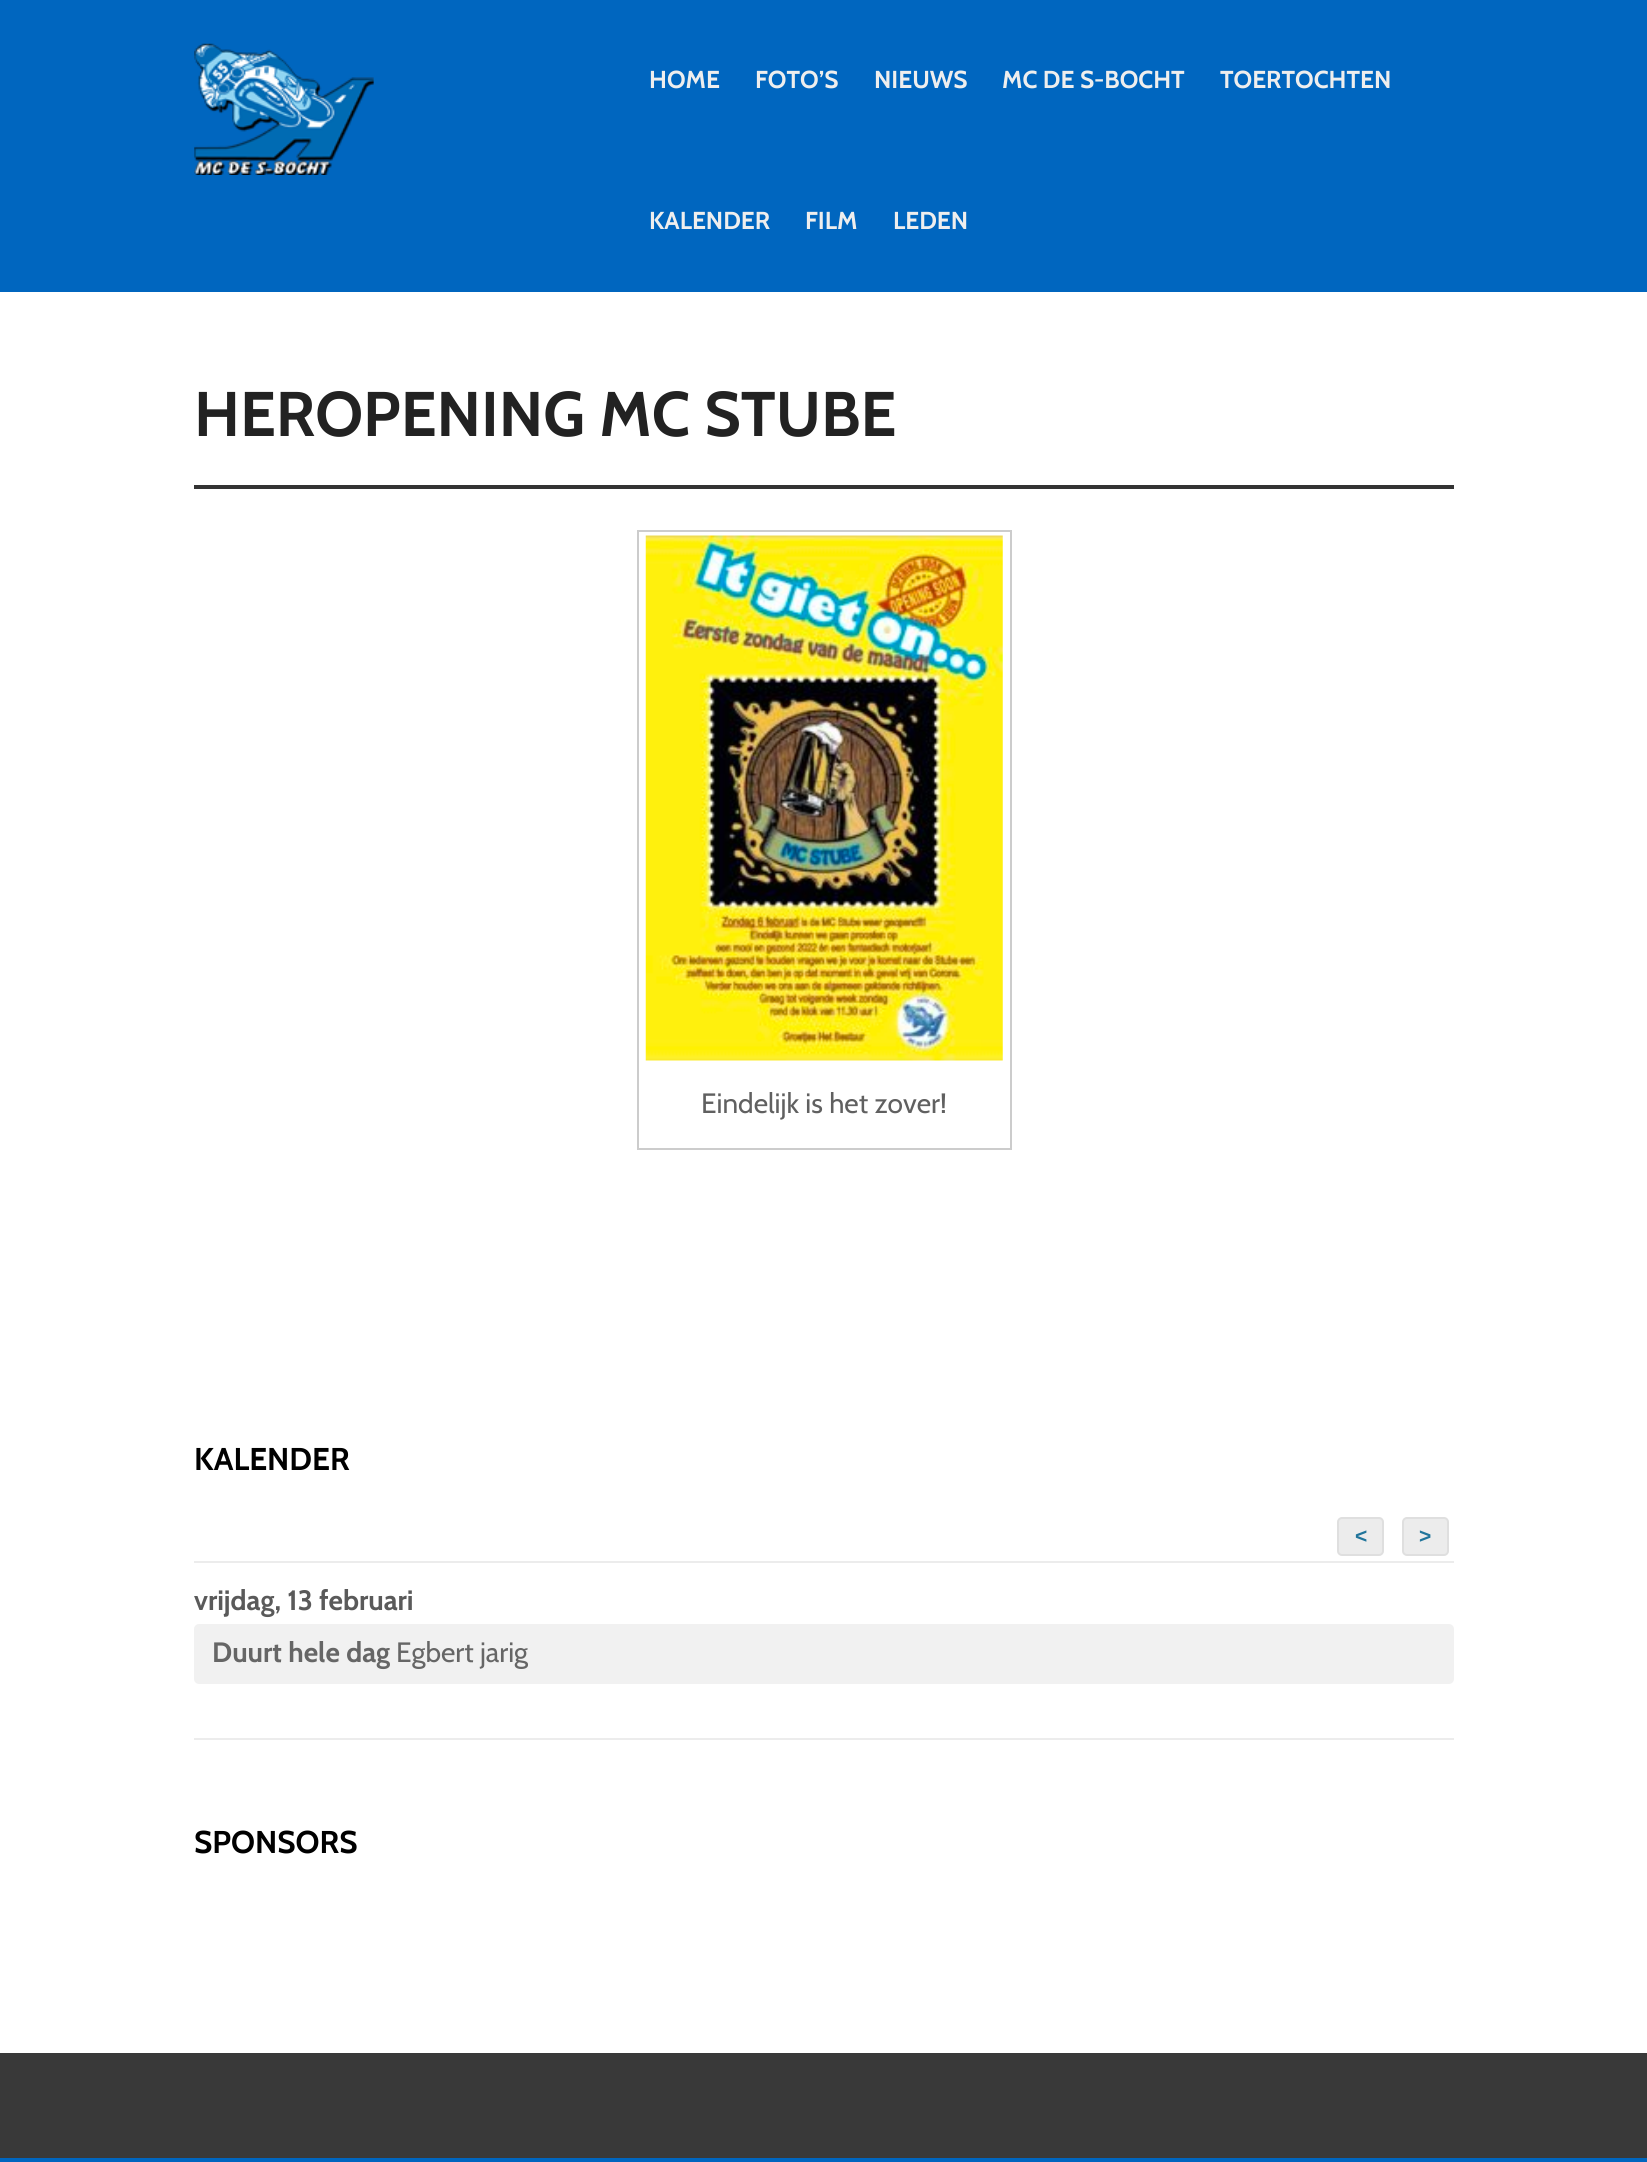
#include <cairo/cairo.h>
#include <math.h>
#include <stddef.h>

static cairo_t *cr;

static void use_color(int r, int g, int b) {
  cairo_set_source_rgb(cr, r / 255.0, g / 255.0, b / 255.0);
}

static void text(double x, double y, const char *s, const char *family, double size, int italic, int bold, int r, int g, int b) {
  cairo_select_font_face(cr, family, italic ? CAIRO_FONT_SLANT_ITALIC : CAIRO_FONT_SLANT_NORMAL,
    bold ? CAIRO_FONT_WEIGHT_BOLD : CAIRO_FONT_WEIGHT_NORMAL);
  cairo_set_font_size(cr, size);
  use_color(r, g, b);
  cairo_move_to(cr, x, y);
  cairo_show_text(cr, s);
}

static void box(double x, double y, double w, double h, int r, int g, int b) {
  use_color(r, g, b);
  cairo_rectangle(cr, x, y, w, h);
  cairo_fill(cr);
}

static void round_rect(double x, double y, double w, double h, double r) {
  cairo_new_sub_path(cr);
  cairo_arc(cr, x + w - r, y + h - r, r, 0, M_PI / 2);
  cairo_arc(cr, x + r, y + h - r, r, M_PI / 2, M_PI);
  cairo_arc(cr, x + r, y + r, r, M_PI, 1.5 * M_PI);
  cairo_arc(cr, x + w - r, y + r, r, 1.5 * M_PI, 2 * M_PI);
  cairo_close_path(cr);
}

static void picture(const char *path, double x, double y, double w, double h) {
  cairo_surface_t *image = cairo_image_surface_create_from_png(path);
  cairo_save(cr);
  cairo_set_source_surface(cr, image, x, y);
  cairo_rectangle(cr, x, y, w, h);
  cairo_fill(cr);
  cairo_restore(cr);
  cairo_surface_destroy(image);
}

static void draw(void) {
  use_color(255, 255, 255);
  cairo_paint(cr);
  box(0, 0, 1647, 292, 0, 102, 191);
  picture("img_01.png", 194, 43, 180, 132);
  box(194, 485, 1260, 4, 51, 51, 51);
  cairo_rectangle(cr, 638, 531, 373, 618);
  use_color(204, 204, 204);
  cairo_stroke(cr);
  picture("img_02.png", 645, 535, 358, 526);
  use_color(236, 236, 236);
  round_rect(1338, 1518, 45, 37, 4);
  cairo_fill_preserve(cr);
  use_color(223, 223, 223);
  cairo_stroke(cr);
  use_color(236, 236, 236);
  round_rect(1403, 1518, 45, 37, 4);
  cairo_fill_preserve(cr);
  use_color(223, 223, 223);
  cairo_stroke(cr);
  box(194, 1738, 1260, 2, 236, 236, 236);
  box(194, 1561, 1260, 2, 236, 236, 236);
  use_color(241, 241, 241);
  round_rect(194, 1624, 1260, 60, 5);
  cairo_fill(cr);
  box(0, 2053, 1647, 105, 57, 57, 57);
  box(0, 2158, 1647, 4, 0, 102, 191);
  text(649, 88, "HOME", "Cabin", 24.5, 0, 1, 238, 238, 238);
  text(755, 88, "FOTO’S", "Cabin", 24.5, 0, 1, 238, 238, 238);
  text(874, 88, "NIEUWS", "Cabin", 24.5, 0, 1, 238, 238, 238);
  text(1002, 88, "MC DE S-BOCHT", "Cabin", 24.5, 0, 1, 238, 238, 238);
  text(1220, 88, "TOERTOCHTEN", "Cabin", 24.5, 0, 1, 238, 238, 238);
  text(649, 229, "KALENDER", "Cabin", 24.5, 0, 1, 238, 238, 238);
  text(805, 229, "FILM", "Cabin", 24.5, 0, 1, 238, 238, 238);
  text(893, 229, "LEDEN", "Cabin", 24.5, 0, 1, 238, 238, 238);
  text(194, 436, "HEROPENING MC STUBE", "Cabin", 63, 0, 1, 34, 34, 34);
  text(701, 1113, "Eindelijk is het zover!", "Cabin", 28, 0, 0, 96, 96, 96);
  text(194, 1470, "KALENDER", "Cabin", 31.5, 0, 1, 0, 0, 0);
  text(1355, 1543, "<", "Liberation Sans", 21, 0, 1, 33, 117, 155);
  text(1419, 1543, ">", "Liberation Sans", 21, 0, 1, 33, 117, 155);
  text(194, 1610, "vrijdag, 13 februari", "Cabin", 28, 0, 1, 90, 90, 90);
  text(212, 1662, "Duurt hele dag", "Cabin", 28, 0, 1, 102, 102, 102);
  text(396, 1662, "Egbert jarig", "Cabin", 28, 0, 0, 102, 102, 102);
  text(194, 1853, "SPONSORS", "Cabin", 31.5, 0, 1, 0, 0, 0);
}

int main(void) {
  cairo_surface_t *surface = cairo_image_surface_create(CAIRO_FORMAT_RGB24, 1647, 2162);
  cr = cairo_create(surface);
  cairo_font_options_t *options = cairo_font_options_create();
  cairo_font_options_set_hint_metrics(options, CAIRO_HINT_METRICS_OFF);
  cairo_font_options_set_hint_style(options, CAIRO_HINT_STYLE_NONE);
  cairo_set_font_options(cr, options);
  cairo_set_miter_limit(cr, 4);
  draw();
  cairo_surface_write_to_png(surface, "out.png");
  cairo_font_options_destroy(options);
  cairo_destroy(cr);
  cairo_surface_destroy(surface);
  return 0;
}
